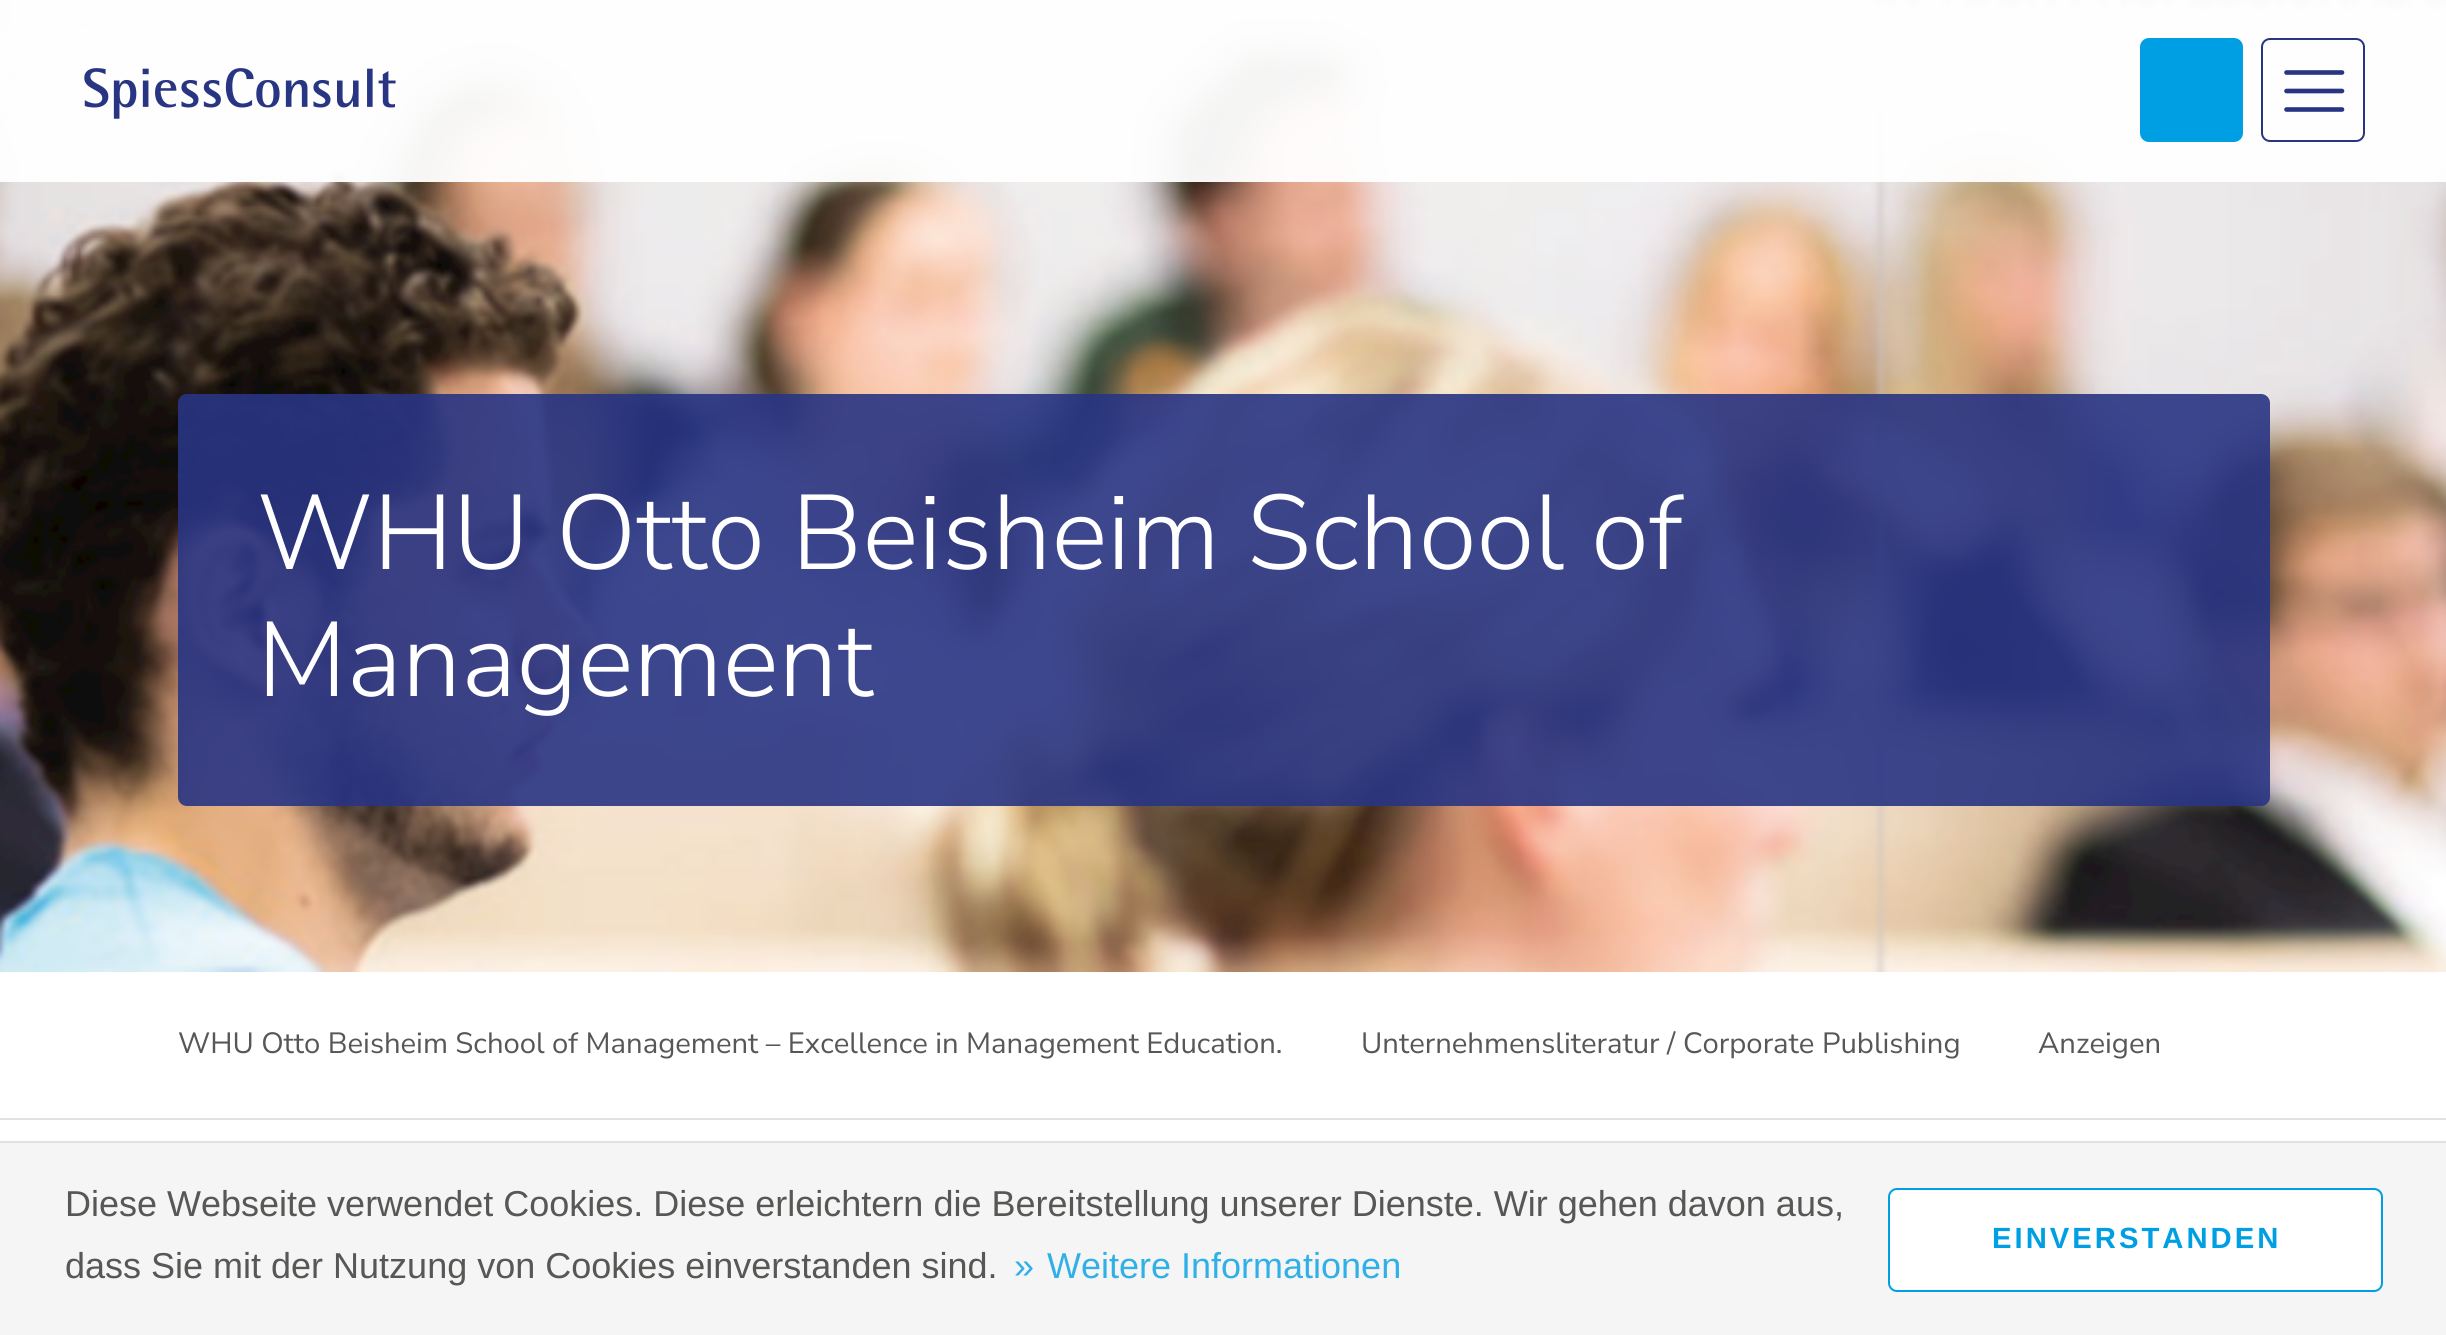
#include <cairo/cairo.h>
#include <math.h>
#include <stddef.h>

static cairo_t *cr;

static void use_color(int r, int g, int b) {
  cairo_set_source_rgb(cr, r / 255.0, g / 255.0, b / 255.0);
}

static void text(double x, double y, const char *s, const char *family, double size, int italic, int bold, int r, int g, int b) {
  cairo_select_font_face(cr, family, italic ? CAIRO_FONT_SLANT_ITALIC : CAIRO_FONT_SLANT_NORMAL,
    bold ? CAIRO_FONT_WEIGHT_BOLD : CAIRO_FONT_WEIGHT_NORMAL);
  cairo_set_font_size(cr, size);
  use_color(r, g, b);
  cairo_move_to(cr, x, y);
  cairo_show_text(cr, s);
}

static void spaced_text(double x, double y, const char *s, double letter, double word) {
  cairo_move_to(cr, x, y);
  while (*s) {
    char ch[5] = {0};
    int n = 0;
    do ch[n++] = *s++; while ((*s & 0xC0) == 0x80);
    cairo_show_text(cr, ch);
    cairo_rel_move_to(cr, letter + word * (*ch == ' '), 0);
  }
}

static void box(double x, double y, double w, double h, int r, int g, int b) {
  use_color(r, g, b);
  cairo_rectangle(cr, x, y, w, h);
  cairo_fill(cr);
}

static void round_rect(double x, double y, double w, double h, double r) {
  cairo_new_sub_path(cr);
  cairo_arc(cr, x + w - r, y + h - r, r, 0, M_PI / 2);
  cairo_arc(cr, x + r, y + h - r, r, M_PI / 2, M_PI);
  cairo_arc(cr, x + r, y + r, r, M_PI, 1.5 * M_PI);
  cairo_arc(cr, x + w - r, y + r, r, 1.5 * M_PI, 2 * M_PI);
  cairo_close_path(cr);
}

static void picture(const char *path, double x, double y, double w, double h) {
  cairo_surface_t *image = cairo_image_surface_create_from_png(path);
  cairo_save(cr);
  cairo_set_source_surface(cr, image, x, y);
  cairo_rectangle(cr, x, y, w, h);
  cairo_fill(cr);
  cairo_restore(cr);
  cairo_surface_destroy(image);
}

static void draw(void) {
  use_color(255, 255, 255);
  cairo_paint(cr);
  picture("img_02.png", 0, 0, 2446, 972);
  cairo_set_source_rgba(cr, 1, 1, 1, 0.95);
  cairo_rectangle(cr, 0, 0, 2446, 182);
  cairo_fill(cr);
  picture("img_01.png", 84, 68, 312, 51);
  use_color(0, 159, 227);
  round_rect(2141, 39, 101, 102, 8);
  cairo_fill_preserve(cr);
  cairo_stroke(cr);
  round_rect(2262, 39, 102, 102, 8);
  use_color(40, 53, 131);
  cairo_stroke(cr);
  cairo_new_path(cr);
  cairo_move_to(cr, 2286.5, 72.5);
  cairo_line_to(cr, 2342, 72.5);
  cairo_move_to(cr, 2286.5, 91);
  cairo_line_to(cr, 2342, 91);
  cairo_move_to(cr, 2286.5, 109.5);
  cairo_line_to(cr, 2342, 109.5);
  cairo_set_line_width(cr, 4.6);
  cairo_set_line_cap(cr, CAIRO_LINE_CAP_ROUND);
  cairo_stroke(cr);
  cairo_set_source_rgba(cr, 0.157, 0.208, 0.514, 0.9);
  round_rect(178, 394, 2092, 412, 9);
  cairo_fill(cr);
  box(0, 1118, 2446, 2, 225, 225, 225);
  box(0, 1143, 2446, 192, 245, 245, 245);
  box(0, 1141, 2446, 2, 225, 225, 225);
  use_color(255, 255, 255);
  round_rect(1889, 1189, 493, 102, 8);
  cairo_fill_preserve(cr);
  use_color(0, 159, 227);
  cairo_set_line_width(cr, 2);
  cairo_set_line_cap(cr, CAIRO_LINE_CAP_BUTT);
  cairo_stroke(cr);
  text(257, 569, "WHU Otto Beisheim School of", "Nunito Sans Light", 105.75, 0, 0, 255, 255, 255);
  text(257, 696, "Management", "Nunito Sans Light", 105.75, 0, 0, 255, 255, 255);
  cairo_select_font_face(cr, "Nunito Sans", CAIRO_FONT_SLANT_NORMAL, CAIRO_FONT_WEIGHT_NORMAL);
  cairo_set_font_size(cr, 29.25);
  use_color(87, 87, 86);
  spaced_text(178, 1053, "WHU Otto Beisheim School of Management – Excellence in Management Education.", 0, -0.1);
  text(1361, 1053, "Unternehmensliteratur / Corporate Publishing", "Nunito Sans", 29.25, 0, 0, 87, 87, 86);
  text(2038, 1053, "Anzeigen", "Nunito Sans", 29.25, 0, 0, 87, 87, 86);
  text(65, 1216, "Diese Webseite verwendet Cookies. Diese erleichtern die Bereitstellung unserer Dienste. Wir gehen davon aus,", "Liberation Sans", 36, 0, 0, 87, 87, 86);
  text(65, 1278, "dass Sie mit der Nutzung von Cookies einverstanden sind.", "Liberation Sans", 36, 0, 0, 87, 87, 86);
  text(1014, 1278, "»", "Liberation Sans", 36, 0, 0, 49, 176, 231);
  text(1047, 1278, "Weitere Informationen", "Liberation Sans", 36, 0, 0, 49, 176, 231);
  cairo_select_font_face(cr, "Liberation Sans", CAIRO_FONT_SLANT_NORMAL, CAIRO_FONT_WEIGHT_BOLD);
  cairo_set_font_size(cr, 29.25);
  use_color(0, 159, 227);
  spaced_text(1992, 1248, "EINVERSTANDEN", 3, 0);
}

int main(void) {
  cairo_surface_t *surface = cairo_image_surface_create(CAIRO_FORMAT_RGB24, 2446, 1335);
  cr = cairo_create(surface);
  cairo_font_options_t *options = cairo_font_options_create();
  cairo_font_options_set_hint_metrics(options, CAIRO_HINT_METRICS_OFF);
  cairo_font_options_set_hint_style(options, CAIRO_HINT_STYLE_NONE);
  cairo_set_font_options(cr, options);
  cairo_set_miter_limit(cr, 4);
  draw();
  cairo_surface_write_to_png(surface, "out.png");
  cairo_font_options_destroy(options);
  cairo_destroy(cr);
  cairo_surface_destroy(surface);
  return 0;
}
